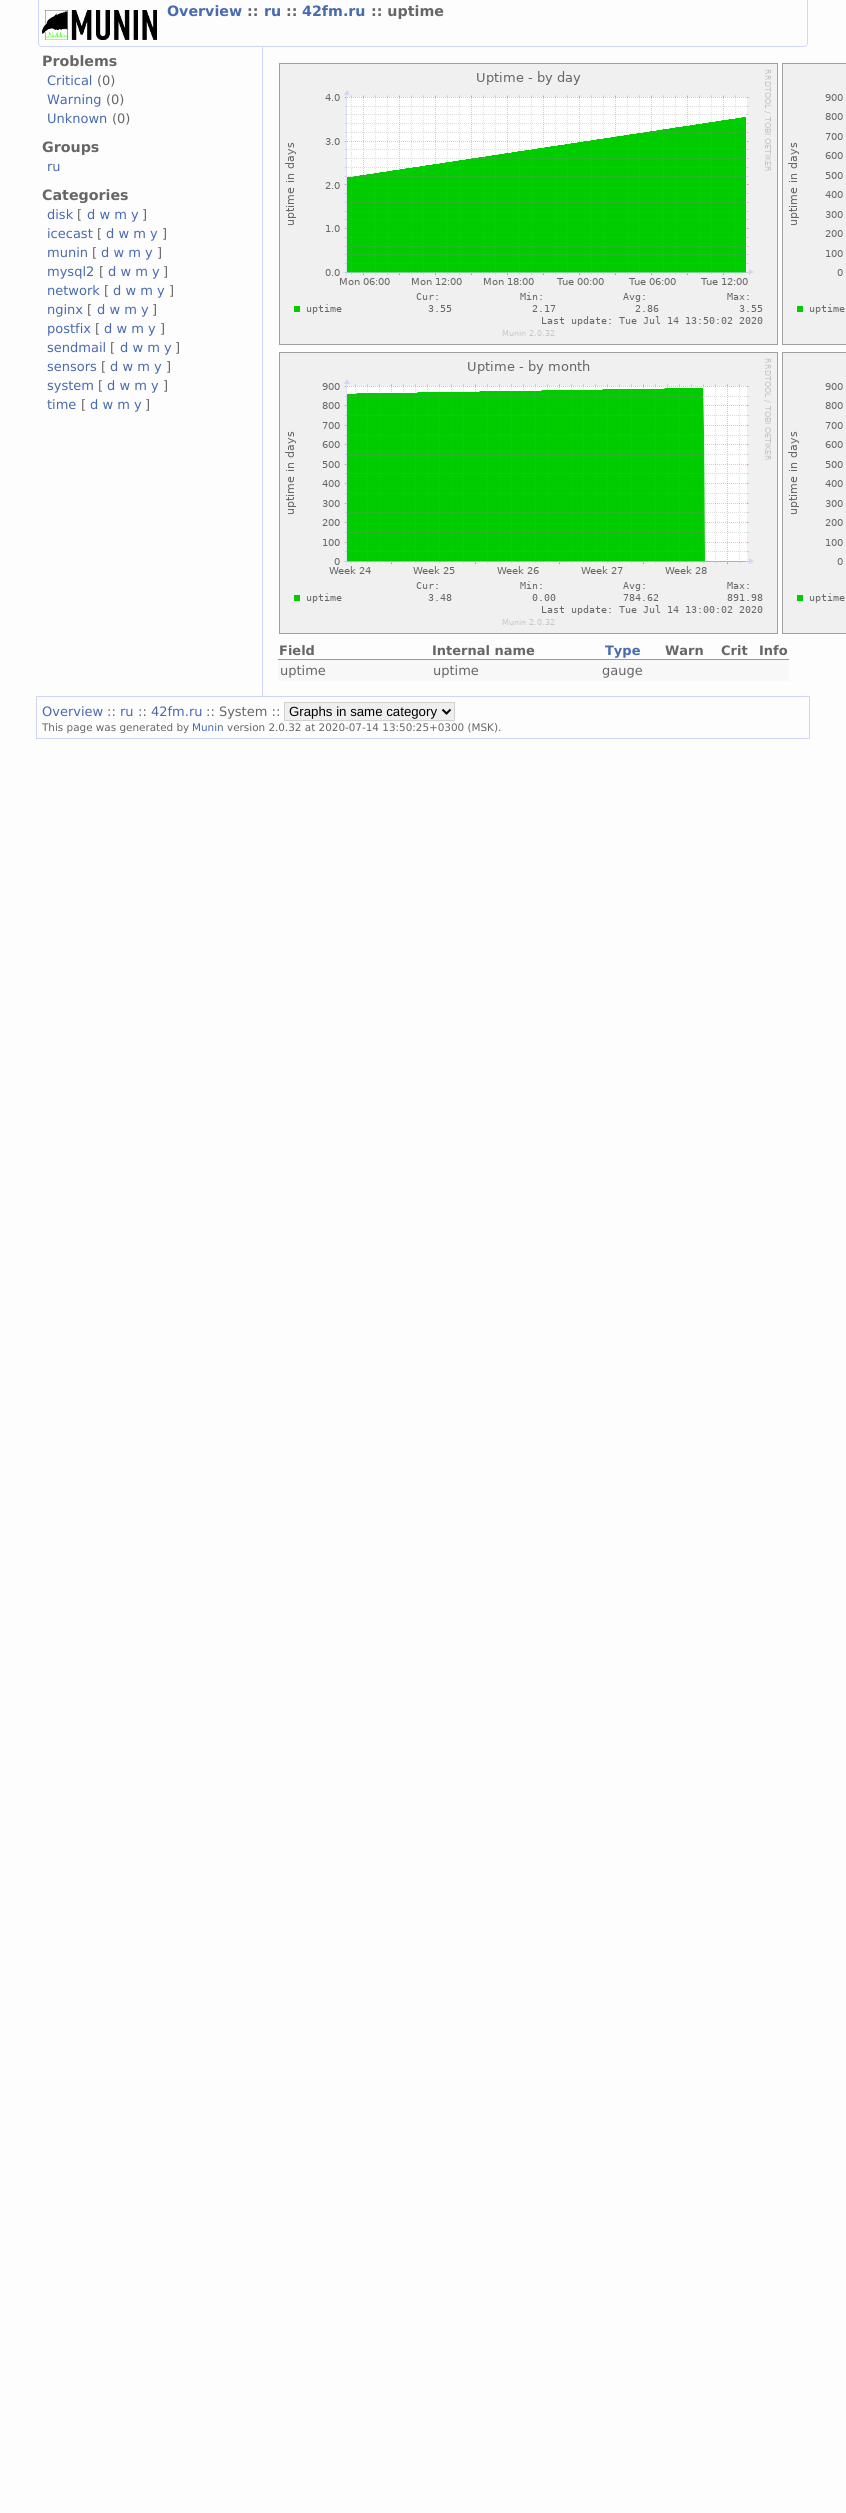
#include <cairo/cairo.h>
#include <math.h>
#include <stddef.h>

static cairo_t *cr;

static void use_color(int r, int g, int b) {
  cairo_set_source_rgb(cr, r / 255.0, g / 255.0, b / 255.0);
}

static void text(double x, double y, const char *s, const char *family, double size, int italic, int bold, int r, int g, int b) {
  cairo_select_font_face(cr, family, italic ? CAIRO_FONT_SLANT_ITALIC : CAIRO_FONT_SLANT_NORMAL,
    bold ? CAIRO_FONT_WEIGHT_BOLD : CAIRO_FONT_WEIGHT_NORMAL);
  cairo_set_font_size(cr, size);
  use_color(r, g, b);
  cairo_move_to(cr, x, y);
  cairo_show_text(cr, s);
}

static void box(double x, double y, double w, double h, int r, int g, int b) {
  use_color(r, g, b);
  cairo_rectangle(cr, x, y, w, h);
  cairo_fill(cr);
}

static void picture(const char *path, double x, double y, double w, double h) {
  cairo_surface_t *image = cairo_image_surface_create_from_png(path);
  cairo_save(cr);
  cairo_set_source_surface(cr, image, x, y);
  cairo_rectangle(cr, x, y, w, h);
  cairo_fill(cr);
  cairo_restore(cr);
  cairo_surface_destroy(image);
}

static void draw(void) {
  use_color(253, 253, 253);
  cairo_paint(cr);
  use_color(207, 214, 248);
  cairo_set_fill_rule(cr, CAIRO_FILL_RULE_EVEN_ODD);
  cairo_new_path(cr);
  cairo_move_to(cr, 38, 0);
  cairo_line_to(cr, 808, 0);
  cairo_line_to(cr, 808, 43);
  cairo_curve_to(cr, 808, 45, 806, 47, 804, 47);
  cairo_line_to(cr, 42, 47);
  cairo_curve_to(cr, 40, 47, 38, 45, 38, 43);
  cairo_close_path(cr);
  cairo_move_to(cr, 39, 0);
  cairo_line_to(cr, 807, 0);
  cairo_line_to(cr, 807, 43);
  cairo_curve_to(cr, 807, 45, 806, 46, 804, 46);
  cairo_line_to(cr, 42, 46);
  cairo_curve_to(cr, 40, 46, 39, 45, 39, 43);
  cairo_close_path(cr);
  cairo_fill(cr);
  picture("img_01.png", 42, 10, 115, 30);
  box(262, 47, 1, 649, 207, 214, 248);
  cairo_rectangle(cr, 279.5, 63.5, 498, 281);
  use_color(160, 160, 160);
  cairo_set_line_width(cr, 1);
  cairo_stroke(cr);
  picture("img_02.png", 280, 64, 497, 280);
  cairo_rectangle(cr, 782.5, 63.5, 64, 281);
  cairo_stroke(cr);
  picture("img_03.png", 783, 64, 63, 280);
  cairo_rectangle(cr, 279.5, 352.5, 498, 281);
  cairo_stroke(cr);
  picture("img_04.png", 280, 353, 497, 280);
  cairo_rectangle(cr, 782.5, 352.5, 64, 281);
  cairo_stroke(cr);
  picture("img_03.png", 783, 353, 63, 280);
  box(278, 659, 511, 1, 153, 153, 153);
  box(278, 660, 511, 21, 248, 248, 248);
  cairo_rectangle(cr, 36.5, 696.5, 773, 42);
  use_color(207, 214, 248);
  cairo_stroke(cr);
  use_color(239, 239, 239);
  cairo_rectangle(cr, 284.5, 702.5, 170, 18);
  cairo_fill_preserve(cr);
  use_color(209, 209, 209);
  cairo_stroke(cr);
  cairo_new_path(cr);
  cairo_move_to(cr, 442.5, 709.5);
  cairo_line_to(cr, 446.5, 713.5);
  cairo_line_to(cr, 450.5, 709.5);
  use_color(0, 0, 0);
  cairo_set_line_width(cr, 2);
  cairo_stroke(cr);
  text(167, 16, "Overview", "DejaVu Sans", 14.25, 0, 1, 72, 106, 175);
  text(247, 16, "::", "DejaVu Sans", 14.25, 0, 1, 102, 102, 102);
  text(264, 16, "ru", "DejaVu Sans", 14.25, 0, 1, 72, 106, 175);
  text(286, 16, "::", "DejaVu Sans", 14.25, 0, 1, 102, 102, 102);
  text(302, 16, "42fm.ru", "DejaVu Sans", 14.25, 0, 1, 72, 106, 175);
  text(371, 16, ":: uptime", "DejaVu Sans", 14.25, 0, 1, 102, 102, 102);
  text(42, 66, "Problems", "DejaVu Sans", 14.25, 0, 1, 102, 102, 102);
  text(47, 85, "Critical", "DejaVu Sans", 13, 0, 0, 72, 106, 175);
  text(97, 85, "(0)", "DejaVu Sans", 13, 0, 0, 102, 102, 102);
  text(47, 104, "Warning", "DejaVu Sans", 13, 0, 0, 72, 106, 175);
  text(106, 104, "(0)", "DejaVu Sans", 13, 0, 0, 102, 102, 102);
  text(47, 123, "Unknown", "DejaVu Sans", 13, 0, 0, 72, 106, 175);
  text(112, 123, "(0)", "DejaVu Sans", 13, 0, 0, 102, 102, 102);
  text(42, 152, "Groups", "DejaVu Sans", 14.25, 0, 1, 102, 102, 102);
  text(47, 171, "ru", "DejaVu Sans", 13, 0, 0, 72, 106, 175);
  text(42, 200, "Categories", "DejaVu Sans", 14.25, 0, 1, 102, 102, 102);
  text(47, 219, "disk", "DejaVu Sans", 13, 0, 0, 72, 106, 175);
  text(77, 219, "[", "DejaVu Sans", 13, 0, 0, 102, 102, 102);
  text(87, 219, "d w m y", "DejaVu Sans", 13, 0, 0, 72, 106, 175);
  text(142, 219, "]", "DejaVu Sans", 13, 0, 0, 102, 102, 102);
  text(47, 238, "icecast", "DejaVu Sans", 13, 0, 0, 72, 106, 175);
  text(97, 238, "[", "DejaVu Sans", 13, 0, 0, 102, 102, 102);
  text(106, 238, "d w m y", "DejaVu Sans", 13, 0, 0, 72, 106, 175);
  text(162, 238, "]", "DejaVu Sans", 13, 0, 0, 102, 102, 102);
  text(47, 257, "munin", "DejaVu Sans", 13, 0, 0, 72, 106, 175);
  text(92, 257, "[", "DejaVu Sans", 13, 0, 0, 102, 102, 102);
  text(101, 257, "d w m y", "DejaVu Sans", 13, 0, 0, 72, 106, 175);
  text(157, 257, "]", "DejaVu Sans", 13, 0, 0, 102, 102, 102);
  text(47, 276, "mysql2", "DejaVu Sans", 13, 0, 0, 72, 106, 175);
  text(99, 276, "[", "DejaVu Sans", 13, 0, 0, 102, 102, 102);
  text(108, 276, "d w m y", "DejaVu Sans", 13, 0, 0, 72, 106, 175);
  text(163, 276, "]", "DejaVu Sans", 13, 0, 0, 102, 102, 102);
  text(47, 295, "network", "DejaVu Sans", 13, 0, 0, 72, 106, 175);
  text(104, 295, "[", "DejaVu Sans", 13, 0, 0, 102, 102, 102);
  text(113, 295, "d w m y", "DejaVu Sans", 13, 0, 0, 72, 106, 175);
  text(169, 295, "]", "DejaVu Sans", 13, 0, 0, 102, 102, 102);
  text(47, 314, "nginx", "DejaVu Sans", 13, 0, 0, 72, 106, 175);
  text(87, 314, "[", "DejaVu Sans", 13, 0, 0, 102, 102, 102);
  text(97, 314, "d w m y", "DejaVu Sans", 13, 0, 0, 72, 106, 175);
  text(152, 314, "]", "DejaVu Sans", 13, 0, 0, 102, 102, 102);
  text(47, 333, "postfix", "DejaVu Sans", 13, 0, 0, 72, 106, 175);
  text(95, 333, "[", "DejaVu Sans", 13, 0, 0, 102, 102, 102);
  text(104, 333, "d w m y", "DejaVu Sans", 13, 0, 0, 72, 106, 175);
  text(160, 333, "]", "DejaVu Sans", 13, 0, 0, 102, 102, 102);
  text(47, 352, "sendmail", "DejaVu Sans", 13, 0, 0, 72, 106, 175);
  text(110, 352, "[", "DejaVu Sans", 13, 0, 0, 102, 102, 102);
  text(120, 352, "d w m y", "DejaVu Sans", 13, 0, 0, 72, 106, 175);
  text(175, 352, "]", "DejaVu Sans", 13, 0, 0, 102, 102, 102);
  text(47, 371, "sensors", "DejaVu Sans", 13, 0, 0, 72, 106, 175);
  text(101, 371, "[", "DejaVu Sans", 13, 0, 0, 102, 102, 102);
  text(110, 371, "d w m y", "DejaVu Sans", 13, 0, 0, 72, 106, 175);
  text(166, 371, "]", "DejaVu Sans", 13, 0, 0, 102, 102, 102);
  text(47, 390, "system", "DejaVu Sans", 13, 0, 0, 72, 106, 175);
  text(98, 390, "[", "DejaVu Sans", 13, 0, 0, 102, 102, 102);
  text(107, 390, "d w m y", "DejaVu Sans", 13, 0, 0, 72, 106, 175);
  text(163, 390, "]", "DejaVu Sans", 13, 0, 0, 102, 102, 102);
  text(47, 409, "time", "DejaVu Sans", 13, 0, 0, 72, 106, 175);
  text(81, 409, "[", "DejaVu Sans", 13, 0, 0, 102, 102, 102);
  text(90, 409, "d w m y", "DejaVu Sans", 13, 0, 0, 72, 106, 175);
  text(145, 409, "]", "DejaVu Sans", 13, 0, 0, 102, 102, 102);
  text(279, 655, "Field", "DejaVu Sans", 13, 0, 1, 102, 102, 102);
  text(432, 655, "Internal name", "DejaVu Sans", 13, 0, 1, 102, 102, 102);
  text(605, 655, "Type", "DejaVu Sans", 13, 0, 1, 72, 106, 175);
  text(665, 655, "Warn", "DejaVu Sans", 13, 0, 1, 102, 102, 102);
  text(721, 655, "Crit", "DejaVu Sans", 13, 0, 1, 102, 102, 102);
  text(759, 655, "Info", "DejaVu Sans", 13, 0, 1, 102, 102, 102);
  text(280, 675, "uptime", "DejaVu Sans", 13, 0, 0, 102, 102, 102);
  text(433, 675, "uptime", "DejaVu Sans", 13, 0, 0, 102, 102, 102);
  text(602, 675, "gauge", "DejaVu Sans", 13, 0, 0, 102, 102, 102);
  text(42, 716, "Overview", "DejaVu Sans", 13, 0, 0, 72, 106, 175);
  text(107, 716, "::", "DejaVu Sans", 13, 0, 0, 102, 102, 102);
  text(120, 716, "ru", "DejaVu Sans", 13, 0, 0, 72, 106, 175);
  text(138, 716, "::", "DejaVu Sans", 13, 0, 0, 102, 102, 102);
  text(151, 716, "42fm.ru", "DejaVu Sans", 13, 0, 0, 72, 106, 175);
  text(206, 716, ":: System ::", "DejaVu Sans", 13, 0, 0, 102, 102, 102);
  text(289, 716, "Graphs in same category", "Liberation Sans", 13.25, 0, 0, 0, 0, 0);
  text(42, 731, "This page was generated by", "DejaVu Sans", 10.4, 0, 0, 102, 102, 102);
  text(192, 731, "Munin", "DejaVu Sans", 10.4, 0, 0, 72, 106, 175);
  text(227, 731, "version 2.0.32 at 2020-07-14 13:50:25+0300 (MSK).", "DejaVu Sans", 10.4, 0, 0, 102, 102, 102);
}

int main(void) {
  cairo_surface_t *surface = cairo_image_surface_create(CAIRO_FORMAT_RGB24, 846, 2513);
  cr = cairo_create(surface);
  cairo_font_options_t *options = cairo_font_options_create();
  cairo_font_options_set_hint_metrics(options, CAIRO_HINT_METRICS_OFF);
  cairo_font_options_set_hint_style(options, CAIRO_HINT_STYLE_NONE);
  cairo_set_font_options(cr, options);
  cairo_set_miter_limit(cr, 4);
  draw();
  cairo_surface_write_to_png(surface, "out.png");
  cairo_font_options_destroy(options);
  cairo_destroy(cr);
  cairo_surface_destroy(surface);
  return 0;
}
